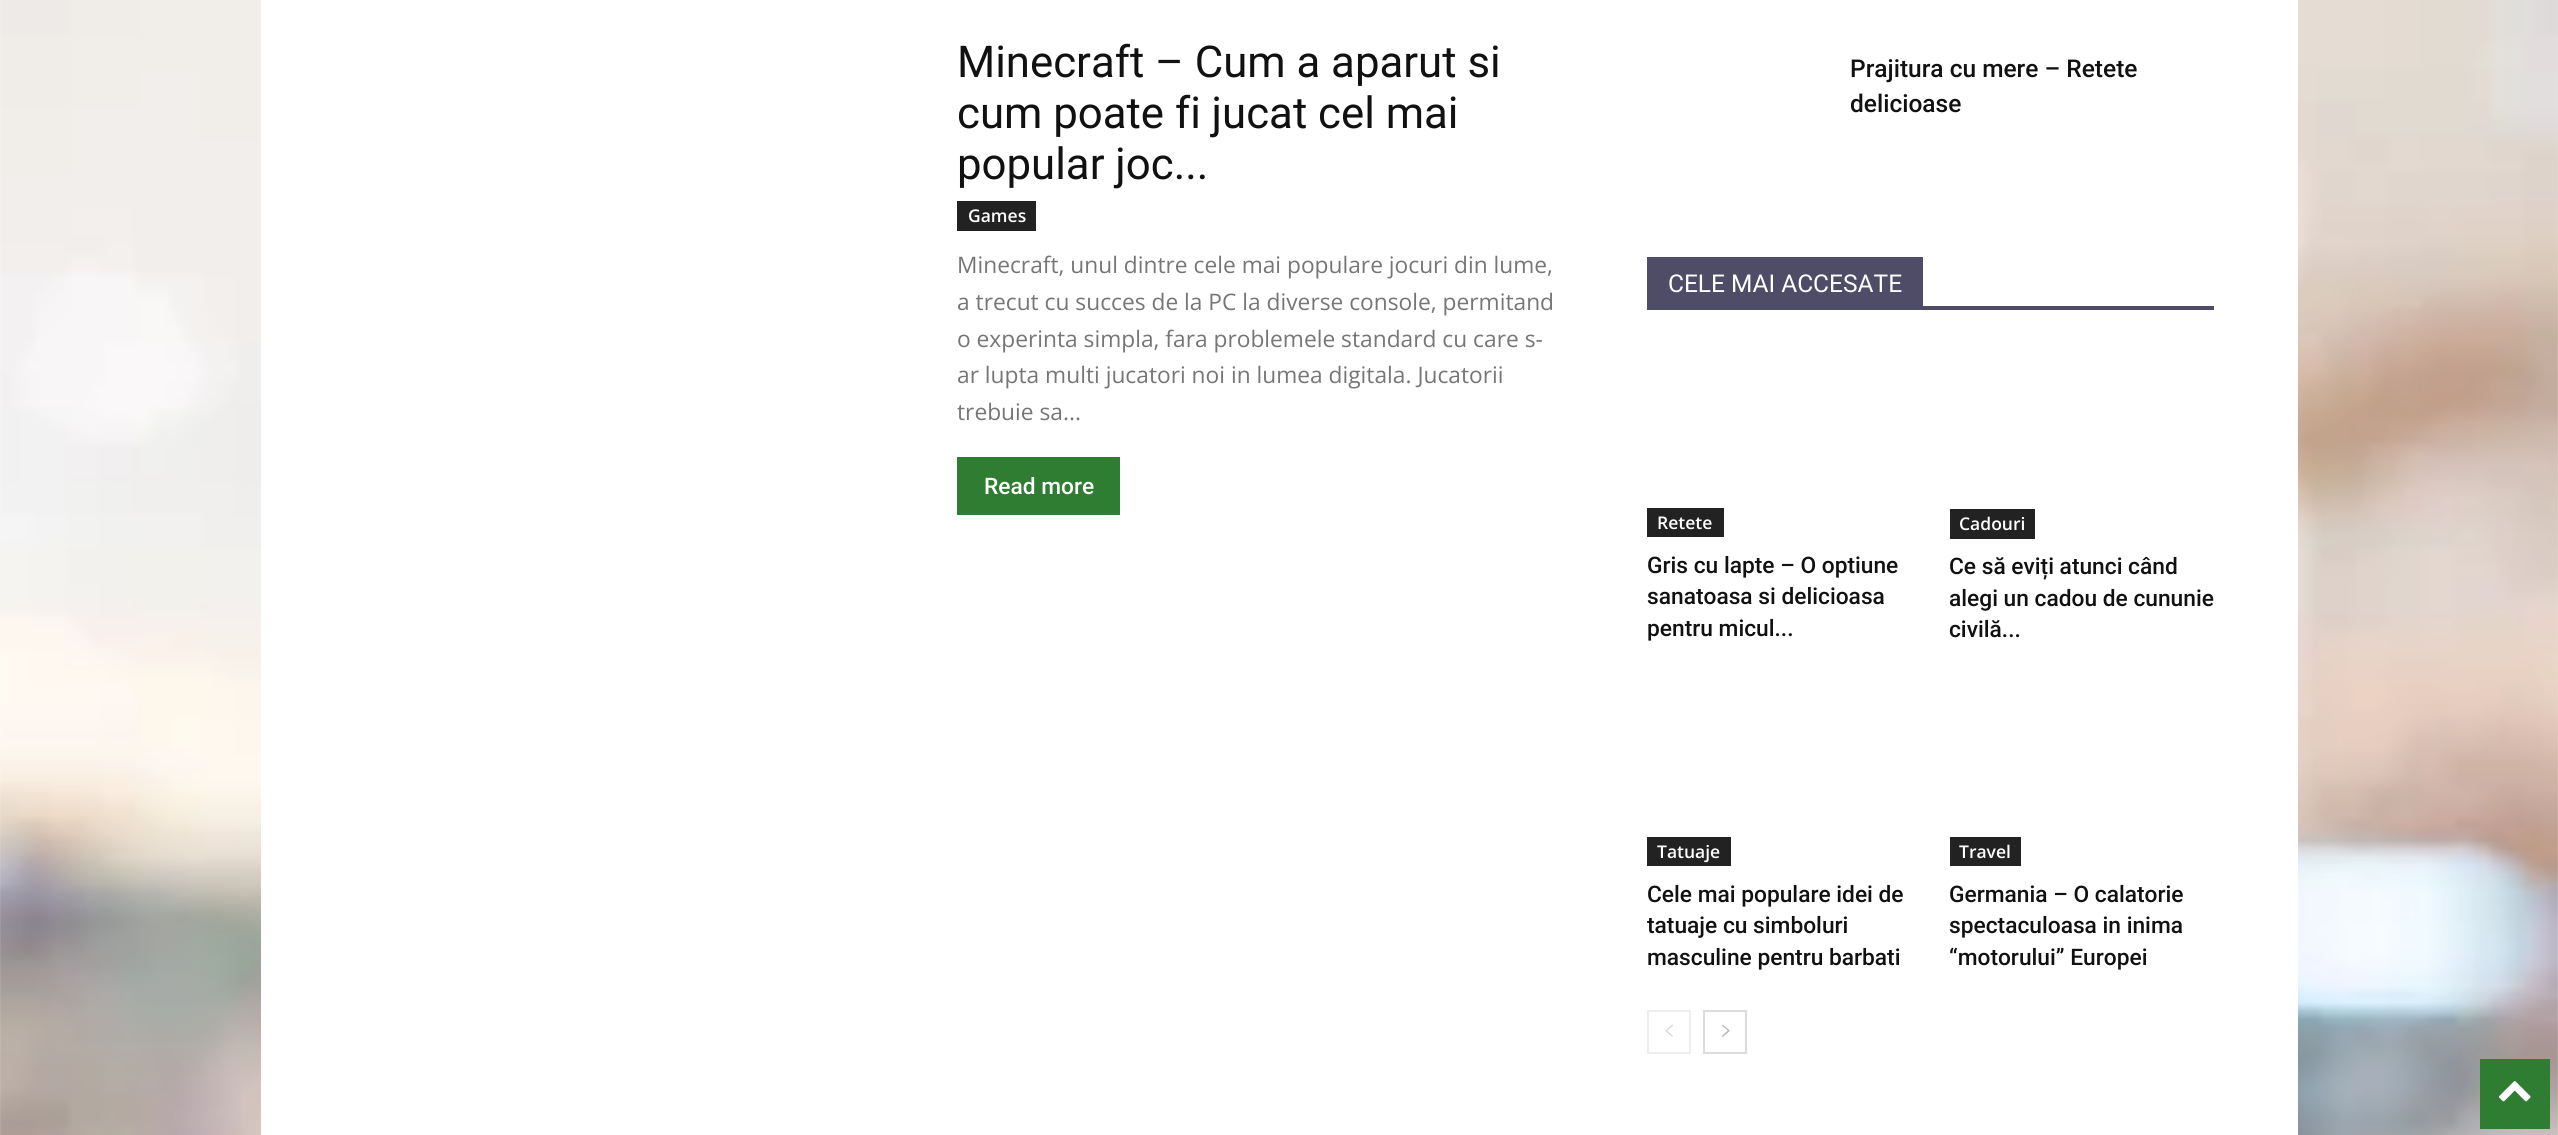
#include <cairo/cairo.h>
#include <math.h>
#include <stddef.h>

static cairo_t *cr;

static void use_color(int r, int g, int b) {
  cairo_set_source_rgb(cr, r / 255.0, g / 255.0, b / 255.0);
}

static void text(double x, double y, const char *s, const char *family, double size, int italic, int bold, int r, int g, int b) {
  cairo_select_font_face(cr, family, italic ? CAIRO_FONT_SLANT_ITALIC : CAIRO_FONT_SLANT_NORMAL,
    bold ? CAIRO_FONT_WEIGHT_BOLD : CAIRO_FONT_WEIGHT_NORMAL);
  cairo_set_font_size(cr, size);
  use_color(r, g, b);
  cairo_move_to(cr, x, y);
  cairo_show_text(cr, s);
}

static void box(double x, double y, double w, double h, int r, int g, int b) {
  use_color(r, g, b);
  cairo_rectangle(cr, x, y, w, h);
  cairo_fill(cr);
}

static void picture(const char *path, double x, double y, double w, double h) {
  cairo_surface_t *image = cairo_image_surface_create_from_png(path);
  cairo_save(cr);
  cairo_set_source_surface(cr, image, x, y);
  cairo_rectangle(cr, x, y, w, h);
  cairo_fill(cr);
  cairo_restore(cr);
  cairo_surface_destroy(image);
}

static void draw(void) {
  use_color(255, 255, 255);
  cairo_paint(cr);
  picture("img_01.png", 0, 0, 2558, 1135);
  box(261, 0, 2037, 1135, 255, 255, 255);
  box(957, 201, 79, 30, 34, 34, 34);
  box(957, 457, 163, 58, 46, 125, 50);
  box(1647, 306, 567, 4, 78, 76, 103);
  box(1647, 257, 276, 49, 78, 76, 103);
  box(1647, 508, 77, 29, 34, 34, 34);
  box(1950, 509, 85, 30, 34, 34, 34);
  box(1647, 837, 84, 29, 34, 34, 34);
  box(1950, 837, 71, 29, 34, 34, 34);
  cairo_rectangle(cr, 1648, 1011, 42, 42);
  use_color(238, 238, 238);
  cairo_stroke(cr);
  picture("img_02.png", 1665, 1024, 8, 13);
  cairo_rectangle(cr, 1704, 1011, 42, 42);
  use_color(220, 220, 220);
  cairo_stroke(cr);
  picture("img_03.png", 1722, 1024, 8, 13);
  box(2480, 1059, 70, 70, 46, 125, 50);
  picture("img_04.png", 2499, 1081, 32, 21);
  text(957, 77, "Minecraft – Cum a aparut si", "Roboto", 43.75, 0, 0, 17, 17, 17);
  text(957, 128, "cum poate fi jucat cel mai", "Roboto", 43.75, 0, 0, 17, 17, 17);
  text(957, 179, "popular joc...", "Roboto", 43.75, 0, 0, 17, 17, 17);
  text(968, 222, "Games", "Open Sans SemiBold", 17.5, 0, 0, 255, 255, 255);
  text(957, 273, "Minecraft, unul dintre cele mai populare jocuri din lume,", "Open Sans", 22.75, 0, 0, 118, 118, 118);
  text(957, 310, "a trecut cu succes de la PC la diverse console, permitand", "Open Sans", 22.75, 0, 0, 118, 118, 118);
  text(957, 347, "o experinta simpla, fara problemele standard cu care s-", "Open Sans", 22.75, 0, 0, 118, 118, 118);
  text(957, 383, "ar lupta multi jucatori noi in lumea digitala. Jucatorii", "Open Sans", 22.75, 0, 0, 118, 118, 118);
  text(957, 420, "trebuie sa...", "Open Sans", 22.75, 0, 0, 118, 118, 118);
  text(984, 494, "Read more", "Roboto Medium", 22.75, 0, 0, 255, 255, 255);
  text(1850, 77, "Prajitura cu mere – Retete", "Roboto Medium", 24.5, 0, 0, 17, 17, 17);
  text(1850, 112, "delicioase", "Roboto Medium", 24.5, 0, 0, 17, 17, 17);
  text(1668, 292, "CELE MAI ACCESATE", "Roboto", 24.5, 0, 0, 255, 255, 255);
  text(1657, 529, "Retete", "Open Sans SemiBold", 17.5, 0, 0, 255, 255, 255);
  text(1647, 573, "Gris cu lapte – O optiune", "Roboto Medium", 22.75, 0, 0, 17, 17, 17);
  text(1647, 604, "sanatoasa si delicioasa", "Roboto Medium", 22.75, 0, 0, 17, 17, 17);
  text(1647, 636, "pentru micul...", "Roboto Medium", 22.75, 0, 0, 17, 17, 17);
  text(1959, 530, "Cadouri", "Open Sans SemiBold", 17.5, 0, 0, 255, 255, 255);
  text(1949, 574, "Ce să eviți atunci când", "Roboto Medium", 22.75, 0, 0, 17, 17, 17);
  text(1949, 606, "alegi un cadou de cununie", "Roboto Medium", 22.75, 0, 0, 17, 17, 17);
  text(1949, 637, "civilă...", "Roboto Medium", 22.75, 0, 0, 17, 17, 17);
  text(1657, 858, "Tatuaje", "Open Sans SemiBold", 17.5, 0, 0, 255, 255, 255);
  text(1647, 902, "Cele mai populare idei de", "Roboto Medium", 22.75, 0, 0, 17, 17, 17);
  text(1647, 933, "tatuaje cu simboluri", "Roboto Medium", 22.75, 0, 0, 17, 17, 17);
  text(1647, 965, "masculine pentru barbati", "Roboto Medium", 22.75, 0, 0, 17, 17, 17);
  text(1959, 858, "Travel", "Open Sans SemiBold", 17.5, 0, 0, 255, 255, 255);
  text(1949, 902, "Germania – O calatorie", "Roboto Medium", 22.75, 0, 0, 17, 17, 17);
  text(1949, 933, "spectaculoasa in inima", "Roboto Medium", 22.75, 0, 0, 17, 17, 17);
  text(1949, 965, "“motorului” Europei", "Roboto Medium", 22.75, 0, 0, 17, 17, 17);
}

int main(void) {
  cairo_surface_t *surface = cairo_image_surface_create(CAIRO_FORMAT_RGB24, 2558, 1135);
  cr = cairo_create(surface);
  cairo_font_options_t *options = cairo_font_options_create();
  cairo_font_options_set_hint_metrics(options, CAIRO_HINT_METRICS_OFF);
  cairo_font_options_set_hint_style(options, CAIRO_HINT_STYLE_NONE);
  cairo_set_font_options(cr, options);
  cairo_set_miter_limit(cr, 4);
  draw();
  cairo_surface_write_to_png(surface, "out.png");
  cairo_font_options_destroy(options);
  cairo_destroy(cr);
  cairo_surface_destroy(surface);
  return 0;
}
